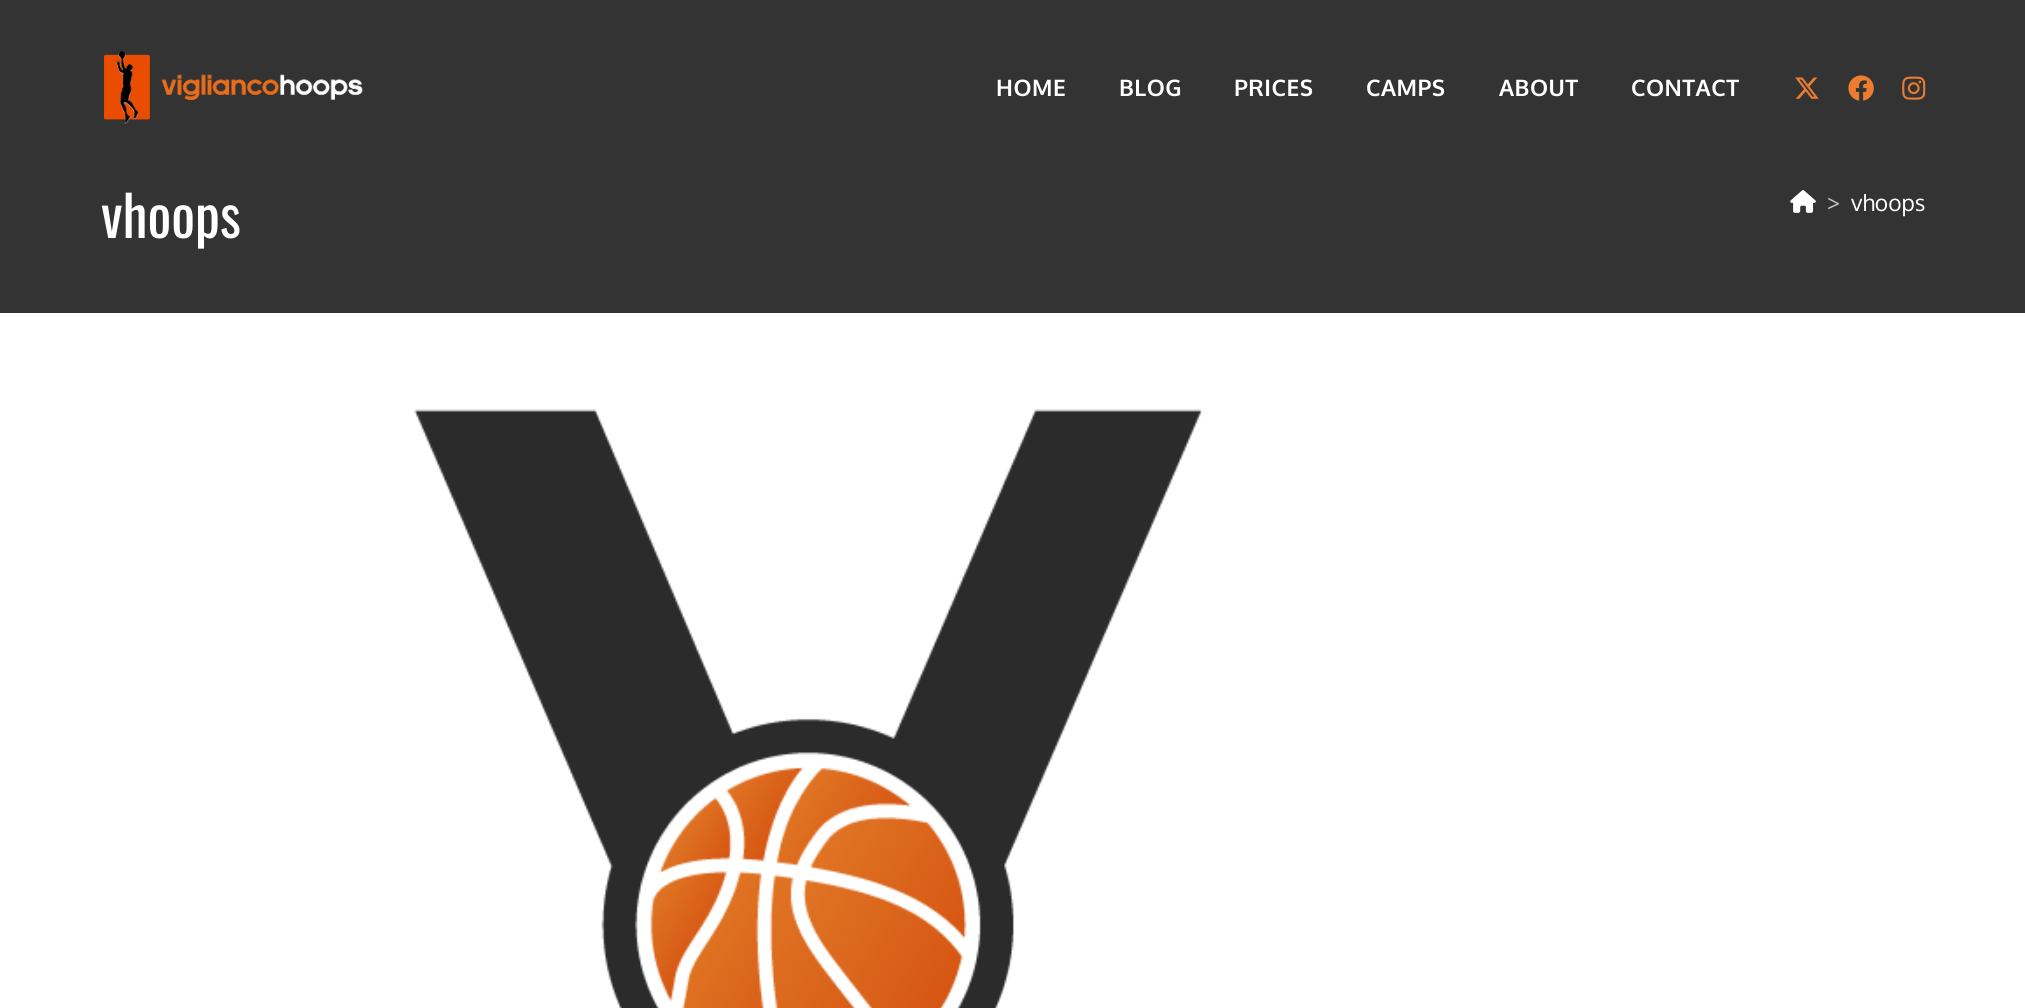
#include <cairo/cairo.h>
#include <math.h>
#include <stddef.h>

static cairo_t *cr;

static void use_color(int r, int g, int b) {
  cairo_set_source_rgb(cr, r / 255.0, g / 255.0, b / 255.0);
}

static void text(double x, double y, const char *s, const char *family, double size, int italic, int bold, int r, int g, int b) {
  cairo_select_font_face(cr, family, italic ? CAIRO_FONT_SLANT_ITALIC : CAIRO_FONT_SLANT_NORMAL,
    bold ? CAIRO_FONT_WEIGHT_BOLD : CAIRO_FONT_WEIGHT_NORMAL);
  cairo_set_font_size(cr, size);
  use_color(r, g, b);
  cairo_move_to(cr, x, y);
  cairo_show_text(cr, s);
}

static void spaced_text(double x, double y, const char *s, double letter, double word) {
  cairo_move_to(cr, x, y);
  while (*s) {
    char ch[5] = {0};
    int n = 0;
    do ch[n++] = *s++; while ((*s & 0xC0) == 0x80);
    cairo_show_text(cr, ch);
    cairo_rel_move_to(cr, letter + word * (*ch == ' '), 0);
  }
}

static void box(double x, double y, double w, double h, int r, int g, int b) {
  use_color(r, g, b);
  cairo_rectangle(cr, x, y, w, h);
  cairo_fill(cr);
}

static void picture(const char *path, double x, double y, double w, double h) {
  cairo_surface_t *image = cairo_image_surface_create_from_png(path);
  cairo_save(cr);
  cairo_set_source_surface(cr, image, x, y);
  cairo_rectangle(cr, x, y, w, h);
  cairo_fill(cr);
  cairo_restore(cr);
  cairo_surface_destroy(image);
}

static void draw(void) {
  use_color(255, 255, 255);
  cairo_paint(cr);
  box(0, 0, 2025, 313, 51, 51, 51);
  picture("img_01.png", 104, 51, 259, 73);
  picture("img_02.png", 1795, 77, 24, 22);
  picture("img_03.png", 1848, 75, 26, 26);
  picture("img_04.png", 1902, 76, 24, 24);
  picture("img_05.png", 1790, 190, 26, 23);
  picture("img_06.png", 414, 409, 789, 599);
  cairo_select_font_face(cr, "Oxygen", CAIRO_FONT_SLANT_NORMAL, CAIRO_FONT_WEIGHT_BOLD);
  cairo_set_font_size(cr, 22.75);
  use_color(255, 255, 255);
  spaced_text(996, 96, "HOME", 0.5, 0);
  spaced_text(1119, 96, "BLOG", 0.5, 0);
  spaced_text(1234, 96, "PRICES", 0.5, 0);
  spaced_text(1366, 96, "CAMPS", 0.5, 0);
  spaced_text(1499, 96, "ABOUT", 0.5, 0);
  spaced_text(1631, 96, "CONTACT", 0.5, 0);
  text(101, 238, "vhoops", "Oswald", 56, 0, 0, 255, 255, 255);
  text(1827, 211, ">", "Oxygen", 22.75, 0, 0, 198, 198, 198);
  text(1851, 211, "vhoops", "Oxygen", 22.75, 0, 0, 255, 255, 255);
}

int main(void) {
  cairo_surface_t *surface = cairo_image_surface_create(CAIRO_FORMAT_RGB24, 2025, 1008);
  cr = cairo_create(surface);
  cairo_font_options_t *options = cairo_font_options_create();
  cairo_font_options_set_hint_metrics(options, CAIRO_HINT_METRICS_OFF);
  cairo_font_options_set_hint_style(options, CAIRO_HINT_STYLE_NONE);
  cairo_set_font_options(cr, options);
  cairo_set_miter_limit(cr, 4);
  draw();
  cairo_surface_write_to_png(surface, "out.png");
  cairo_font_options_destroy(options);
  cairo_destroy(cr);
  cairo_surface_destroy(surface);
  return 0;
}
